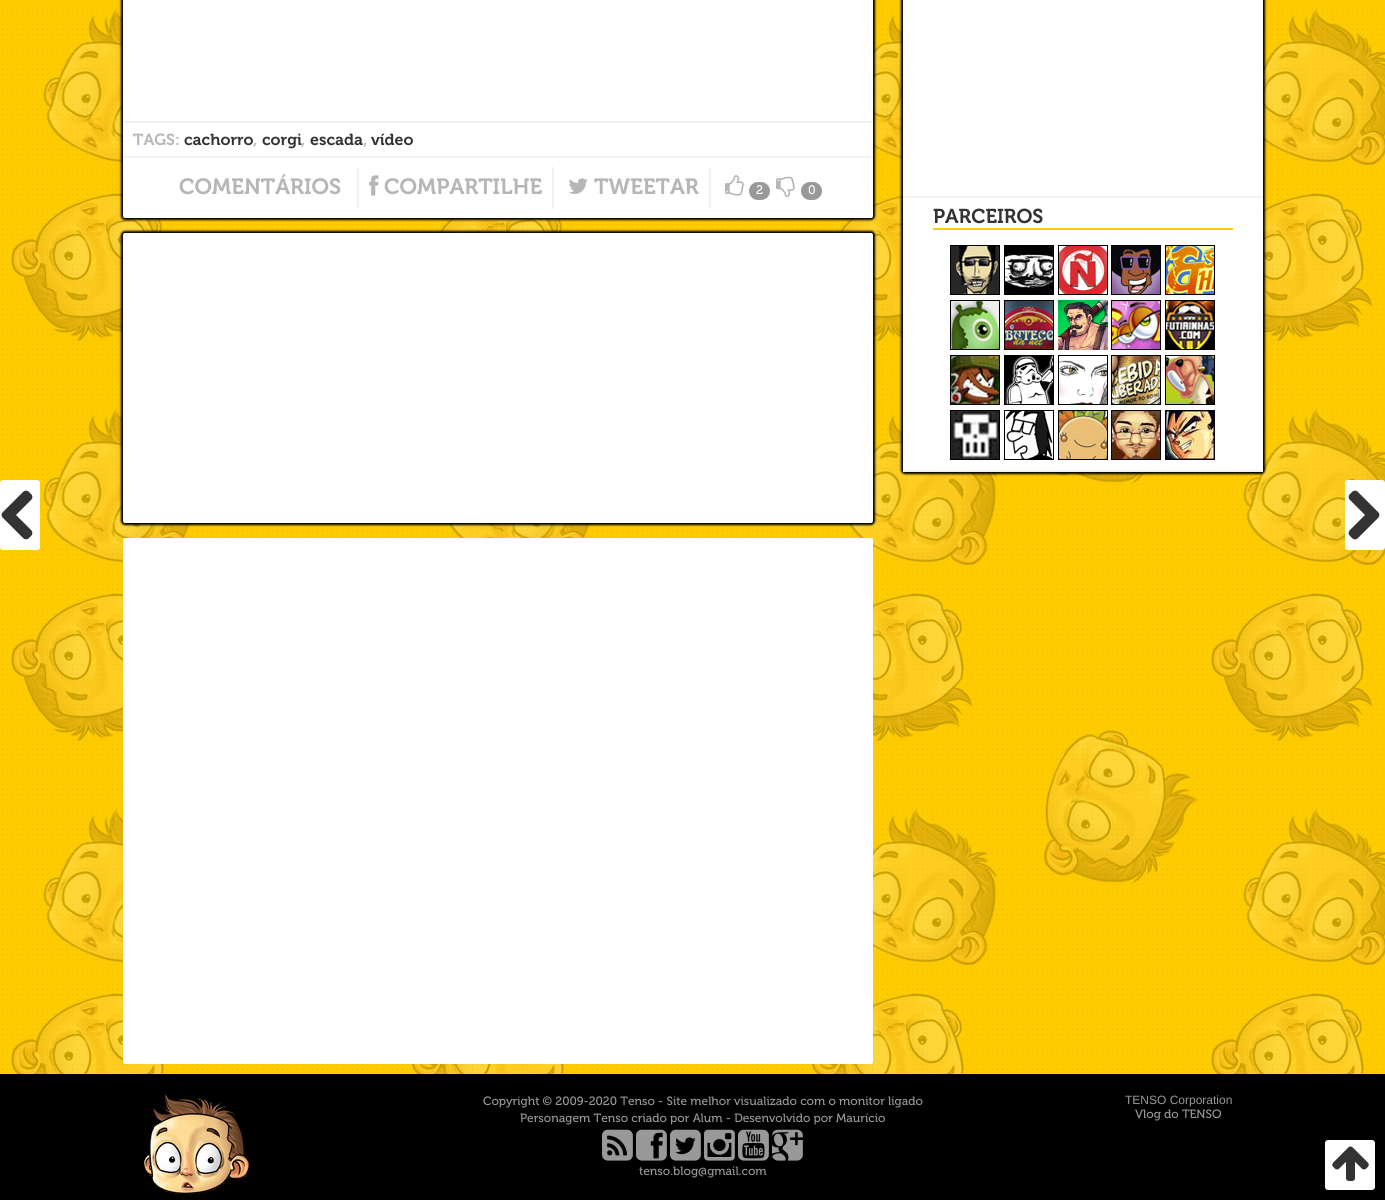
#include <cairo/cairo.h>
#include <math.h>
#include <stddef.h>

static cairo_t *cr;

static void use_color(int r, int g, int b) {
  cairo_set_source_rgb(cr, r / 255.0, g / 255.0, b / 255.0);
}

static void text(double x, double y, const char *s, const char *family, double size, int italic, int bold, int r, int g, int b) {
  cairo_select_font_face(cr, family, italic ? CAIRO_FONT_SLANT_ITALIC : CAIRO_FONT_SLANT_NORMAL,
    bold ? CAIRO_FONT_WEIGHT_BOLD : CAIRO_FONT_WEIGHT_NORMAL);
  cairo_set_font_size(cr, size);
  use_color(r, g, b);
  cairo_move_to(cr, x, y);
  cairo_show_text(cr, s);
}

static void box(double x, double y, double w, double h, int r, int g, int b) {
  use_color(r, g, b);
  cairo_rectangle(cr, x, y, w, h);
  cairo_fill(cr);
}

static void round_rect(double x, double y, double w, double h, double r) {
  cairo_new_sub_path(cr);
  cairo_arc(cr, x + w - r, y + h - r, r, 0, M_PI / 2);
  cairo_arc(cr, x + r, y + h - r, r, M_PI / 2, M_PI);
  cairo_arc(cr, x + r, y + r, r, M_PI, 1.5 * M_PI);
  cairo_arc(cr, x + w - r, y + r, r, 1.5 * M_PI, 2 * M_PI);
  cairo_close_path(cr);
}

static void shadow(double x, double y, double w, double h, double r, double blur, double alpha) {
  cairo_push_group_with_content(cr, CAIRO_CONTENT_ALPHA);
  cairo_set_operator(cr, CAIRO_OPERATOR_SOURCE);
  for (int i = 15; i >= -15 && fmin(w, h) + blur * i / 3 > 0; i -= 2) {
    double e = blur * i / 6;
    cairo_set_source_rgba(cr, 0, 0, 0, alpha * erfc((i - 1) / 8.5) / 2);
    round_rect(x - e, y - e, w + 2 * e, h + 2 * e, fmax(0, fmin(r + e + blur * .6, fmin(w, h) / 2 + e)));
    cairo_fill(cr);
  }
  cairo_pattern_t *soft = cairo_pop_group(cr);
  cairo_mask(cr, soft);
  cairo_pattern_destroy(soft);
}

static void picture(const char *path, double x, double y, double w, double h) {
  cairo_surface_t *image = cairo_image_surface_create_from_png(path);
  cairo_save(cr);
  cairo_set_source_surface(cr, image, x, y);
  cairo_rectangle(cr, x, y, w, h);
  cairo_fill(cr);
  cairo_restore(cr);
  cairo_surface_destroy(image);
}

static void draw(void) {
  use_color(255, 255, 255);
  cairo_paint(cr);
  picture("img_01.png", 0, 0, 1385, 1074);
  use_color(0, 0, 0);
  shadow(121, -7, 754, 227, 4, 1, 1);
  use_color(255, 255, 255);
  round_rect(123, -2, 750, 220, 2);
  cairo_fill(cr);
  box(123, 121, 750, 2, 242, 242, 242);
  box(123, 156, 750, 2, 242, 242, 242);
  box(357, 167, 2, 42, 242, 242, 242);
  box(552, 167, 2, 42, 242, 242, 242);
  picture("img_02.png", 369, 175, 10, 21);
  box(709, 167, 2, 42, 242, 242, 242);
  picture("img_03.png", 568, 178, 20, 16);
  picture("img_04.png", 725, 175, 19, 21);
  use_color(153, 153, 153);
  round_rect(749, 182, 21, 18, 9);
  cairo_fill(cr);
  picture("img_05.png", 776, 176, 19, 22);
  round_rect(801, 182, 21, 18, 9);
  cairo_fill(cr);
  use_color(0, 0, 0);
  shadow(121, 231, 754, 294, 4, 1, 1);
  use_color(255, 255, 255);
  round_rect(123, 233, 750, 290, 2);
  cairo_fill(cr);
  round_rect(123, 538, 750, 526, 2);
  cairo_fill(cr);
  use_color(0, 0, 0);
  shadow(901, -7, 364, 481, 4, 1, 1);
  box(903, 0, 360, 470, 255, 255, 255);
  box(903, 196, 360, 2, 242, 242, 242);
  box(903, 470, 360, 2, 242, 242, 242);
  box(933, 228, 300, 2, 254, 202, 4);
  picture("img_06.png", 950, 245, 50, 50);
  picture("img_07.png", 1004, 245, 50, 50);
  picture("img_08.png", 1058, 245, 50, 50);
  picture("img_09.png", 1111, 245, 50, 50);
  picture("img_10.png", 1165, 245, 50, 50);
  picture("img_11.png", 950, 300, 50, 50);
  picture("img_12.png", 1004, 300, 50, 50);
  picture("img_13.png", 1058, 300, 50, 50);
  picture("img_14.png", 1111, 300, 50, 50);
  picture("img_15.png", 1165, 300, 50, 50);
  picture("img_16.png", 950, 355, 50, 50);
  picture("img_17.png", 1004, 355, 50, 50);
  picture("img_18.png", 1058, 355, 50, 50);
  picture("img_19.png", 1111, 355, 50, 50);
  picture("img_20.png", 1165, 355, 50, 50);
  picture("img_21.png", 950, 410, 50, 50);
  picture("img_22.png", 1004, 410, 50, 50);
  picture("img_23.png", 1058, 410, 50, 50);
  picture("img_24.png", 1111, 410, 50, 50);
  picture("img_25.png", 1165, 410, 50, 50);
  use_color(255, 255, 255);
  round_rect(0, 480, 40, 70, 3);
  cairo_fill(cr);
  picture("img_26.png", 1, 490, 32, 50);
  round_rect(1345, 480, 40, 70, 3);
  cairo_fill(cr);
  picture("img_27.png", 1348, 490, 32, 50);
  box(0, 1074, 1385, 126, 0, 0, 0);
  picture("img_28.png", 143, 1094, 107, 100);
  picture("img_29.png", 602, 1129, 31, 32);
  picture("img_30.png", 636, 1129, 31, 32);
  picture("img_31.png", 670, 1129, 31, 32);
  picture("img_32.png", 704, 1129, 31, 32);
  picture("img_33.png", 738, 1129, 31, 32);
  picture("img_34.png", 772, 1129, 31, 32);
  use_color(255, 255, 255);
  round_rect(1325, 1140, 50, 50, 3);
  cairo_fill(cr);
  picture("img_35.png", 1332, 1146, 37, 35);
  text(133, 145, "TAGS:", "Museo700", 16, 0, 0, 182, 182, 182);
  text(184, 145, "cachorro", "Museo700", 16, 0, 0, 51, 51, 51);
  text(253, 145, ",", "Museo700", 16, 0, 0, 182, 182, 182);
  text(262, 145, "corgi", "Museo700", 16, 0, 0, 51, 51, 51);
  text(301, 145, ",", "Museo700", 16, 0, 0, 182, 182, 182);
  text(310, 145, "escada", "Museo700", 16, 0, 0, 51, 51, 51);
  text(363, 145, ",", "Museo700", 16, 0, 0, 182, 182, 182);
  text(371, 145, "vídeo", "Museo700", 16, 0, 0, 51, 51, 51);
  text(179, 194, "COMENTÁRIOS", "Museo700", 22, 0, 0, 182, 182, 182);
  text(384, 194, "COMPARTILHE", "Museo700", 22, 0, 0, 182, 182, 182);
  text(594, 194, "TWEETAR", "Museo700", 22, 0, 0, 182, 182, 182);
  text(756, 194, "2", "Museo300", 12, 0, 1, 255, 255, 255);
  text(808, 194, "0", "Museo300", 12, 0, 1, 255, 255, 255);
  text(933, 223, "PARCEIROS", "Museo700", 20, 0, 0, 51, 51, 51);
  text(483, 1105, "Copyright © 2009-2020 Tenso - Site melhor visualizado com o monitor ligado", "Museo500", 12, 0, 0, 153, 153, 153);
  text(520, 1122, "Personagem Tenso criado por Alum - Desenvolvido por Maurício", "Museo500", 12, 0, 0, 153, 153, 153);
  text(639, 1175, "tenso.blog@gmail.com", "Museo500", 12, 0, 0, 153, 153, 153);
  text(1125, 1104, "TENSO Corporation", "Liberation Sans", 12, 0, 0, 153, 153, 153);
  text(1135, 1118, "Vlog do TENSO", "Museo500", 12, 0, 0, 153, 153, 153);
}

int main(void) {
  cairo_surface_t *surface = cairo_image_surface_create(CAIRO_FORMAT_RGB24, 1385, 1200);
  cr = cairo_create(surface);
  cairo_font_options_t *options = cairo_font_options_create();
  cairo_font_options_set_hint_metrics(options, CAIRO_HINT_METRICS_OFF);
  cairo_font_options_set_hint_style(options, CAIRO_HINT_STYLE_NONE);
  cairo_set_font_options(cr, options);
  cairo_set_miter_limit(cr, 4);
  draw();
  cairo_surface_write_to_png(surface, "out.png");
  cairo_font_options_destroy(options);
  cairo_destroy(cr);
  cairo_surface_destroy(surface);
  return 0;
}
